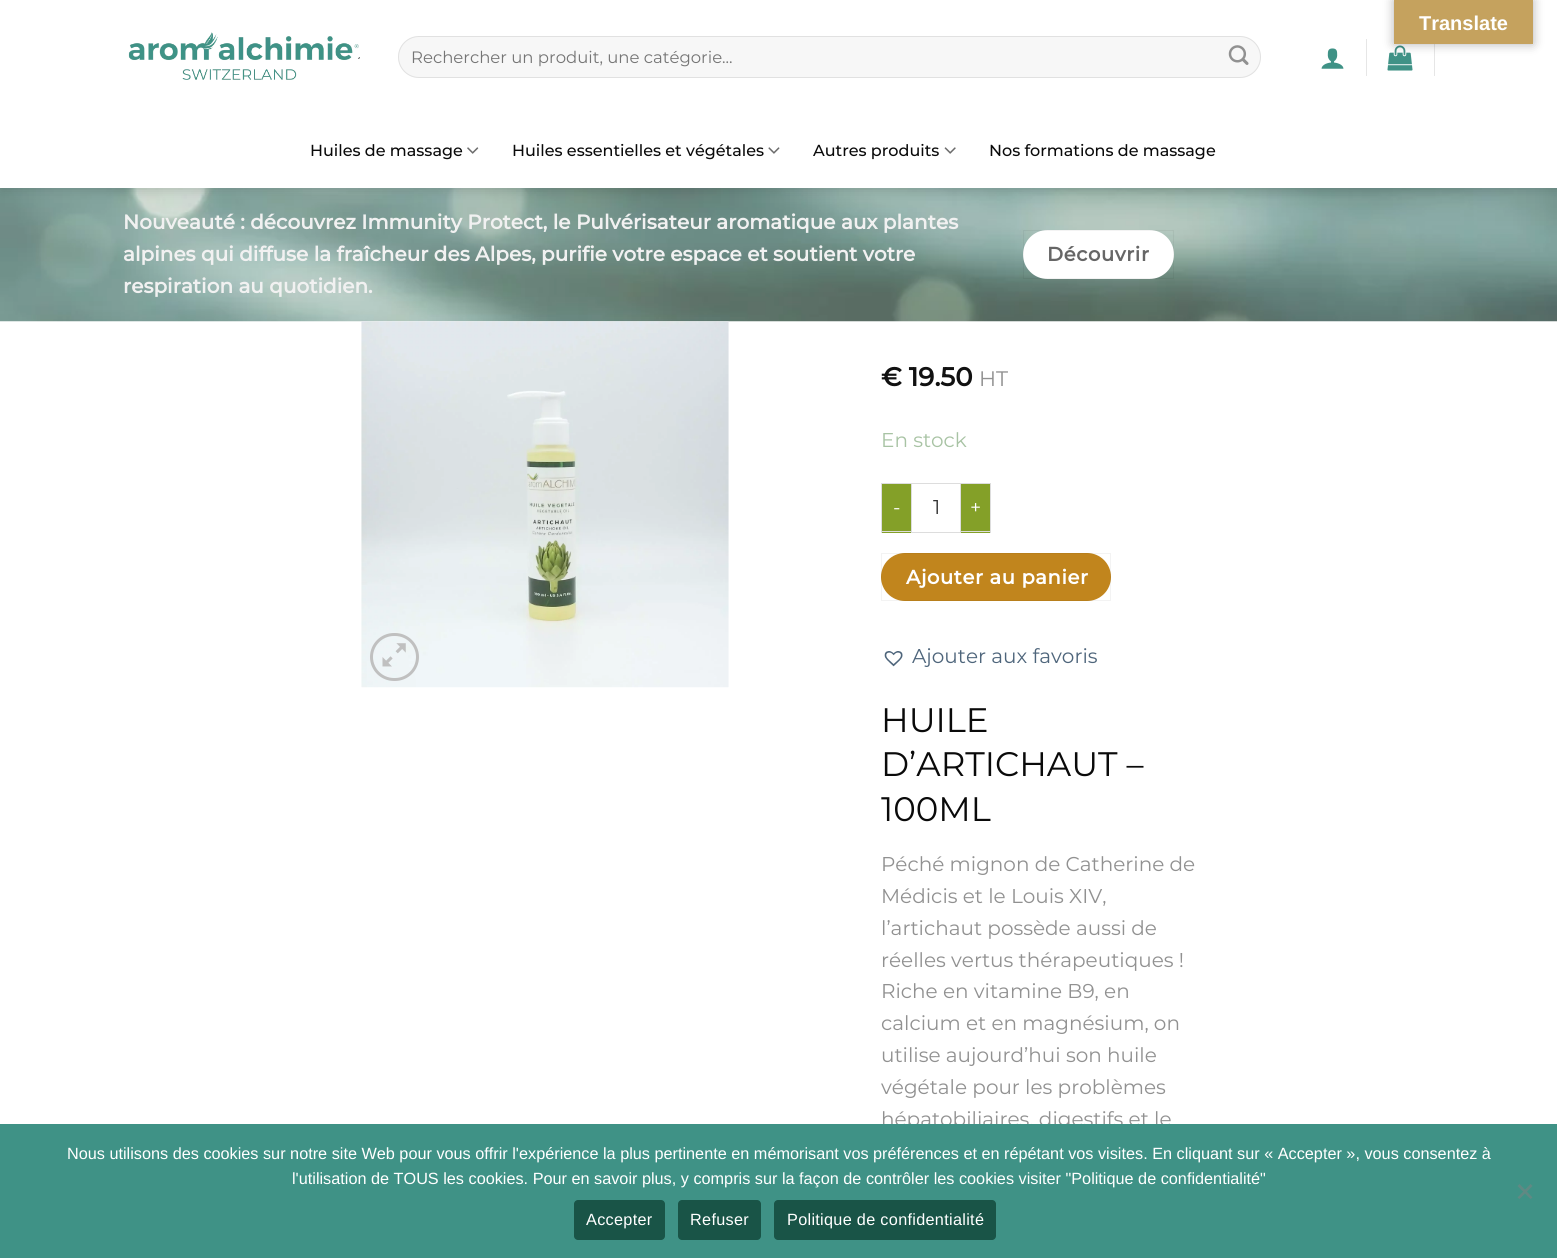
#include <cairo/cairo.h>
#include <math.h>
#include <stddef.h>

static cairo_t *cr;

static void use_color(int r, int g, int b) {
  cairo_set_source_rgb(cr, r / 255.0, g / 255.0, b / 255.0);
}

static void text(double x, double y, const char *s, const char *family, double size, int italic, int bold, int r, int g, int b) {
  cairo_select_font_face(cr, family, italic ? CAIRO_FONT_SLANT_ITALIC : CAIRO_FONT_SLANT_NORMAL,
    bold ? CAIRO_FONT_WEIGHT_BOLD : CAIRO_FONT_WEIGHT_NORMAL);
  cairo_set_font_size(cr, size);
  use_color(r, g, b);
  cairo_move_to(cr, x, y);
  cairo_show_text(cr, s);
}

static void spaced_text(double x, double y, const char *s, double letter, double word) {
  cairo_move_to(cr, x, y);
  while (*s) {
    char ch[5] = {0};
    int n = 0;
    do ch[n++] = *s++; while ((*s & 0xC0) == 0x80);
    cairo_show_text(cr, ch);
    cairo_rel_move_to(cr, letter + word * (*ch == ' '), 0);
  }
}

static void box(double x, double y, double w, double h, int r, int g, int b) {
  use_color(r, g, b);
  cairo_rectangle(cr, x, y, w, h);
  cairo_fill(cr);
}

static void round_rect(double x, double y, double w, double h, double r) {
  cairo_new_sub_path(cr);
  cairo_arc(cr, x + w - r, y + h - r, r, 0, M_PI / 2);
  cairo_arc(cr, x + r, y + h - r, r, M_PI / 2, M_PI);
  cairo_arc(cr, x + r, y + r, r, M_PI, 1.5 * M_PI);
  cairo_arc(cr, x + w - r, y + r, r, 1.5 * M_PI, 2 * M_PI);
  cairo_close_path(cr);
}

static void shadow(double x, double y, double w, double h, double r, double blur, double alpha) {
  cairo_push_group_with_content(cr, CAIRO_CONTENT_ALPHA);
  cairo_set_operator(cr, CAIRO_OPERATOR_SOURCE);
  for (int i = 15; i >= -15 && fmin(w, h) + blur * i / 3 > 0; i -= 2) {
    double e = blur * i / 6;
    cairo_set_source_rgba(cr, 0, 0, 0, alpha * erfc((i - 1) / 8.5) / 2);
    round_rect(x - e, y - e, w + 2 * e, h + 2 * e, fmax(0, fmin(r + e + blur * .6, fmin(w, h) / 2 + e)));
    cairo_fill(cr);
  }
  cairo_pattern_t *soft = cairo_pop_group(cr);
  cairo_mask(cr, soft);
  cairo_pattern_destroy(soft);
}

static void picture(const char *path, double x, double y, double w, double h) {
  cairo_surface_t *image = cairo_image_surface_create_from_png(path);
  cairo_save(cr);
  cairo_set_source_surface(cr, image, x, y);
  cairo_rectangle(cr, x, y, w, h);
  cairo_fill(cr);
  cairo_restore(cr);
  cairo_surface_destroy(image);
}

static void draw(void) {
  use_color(255, 255, 255);
  cairo_paint(cr);
  picture("img_08.png", 0, 188, 1557, 134);
  use_color(0, 0, 0);
  shadow(1, 1, 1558, 188, 0, 6, 0.15);
  box(0, 0, 1557, 188, 255, 255, 255);
  picture("img_04.png", 1387, 45, 26, 26);
  box(1434, 39, 1, 37, 230, 230, 230);
  use_color(0, 0, 0);
  shadow(1394, 0, 139, 44, 0, 5.5, 0.3);
  box(1394, 0, 139, 44, 197, 162, 94);
  picture("img_01.png", 128, 32, 232, 48);
  use_color(247, 247, 247);
  round_rect(398, 36, 863, 42, 21);
  cairo_fill(cr);
  round_rect(398.5, 36.5, 862, 41, 20.5);
  cairo_set_source_rgba(cr, 0, 0, 0, 0.09);
  cairo_set_line_width(cr, 1);
  cairo_stroke(cr);
  picture("img_02.png", 1228, 45, 21, 20);
  picture("img_03.png", 1321, 48, 23, 21);
  box(1366, 39, 1, 37, 230, 230, 230);
  picture("img_05.png", 467, 147, 12, 7);
  picture("img_06.png", 768, 147, 12, 7);
  picture("img_07.png", 944, 147, 12, 7);
  use_color(255, 255, 255);
  round_rect(1023, 230, 151, 49, 24.5);
  cairo_fill(cr);
  cairo_rectangle(cr, 1023.5, 230.5, 150, 48);
  cairo_set_source_rgba(cr, 0, 0, 0, 0.05);
  cairo_stroke(cr);
  picture("img_09.png", 361, 321, 368, 367);
  round_rect(371.5, 634.5, 46, 45, 22.5);
  use_color(192, 192, 192);
  cairo_set_line_width(cr, 3);
  cairo_stroke(cr);
  picture("img_10.png", 382, 643, 24, 24);
  box(882, 484, 29, 49, 132, 160, 40);
  box(881, 483, 30, 1, 221, 221, 221);
  box(881, 531, 30, 1, 221, 221, 221);
  box(881, 483, 1, 50, 221, 221, 221);
  cairo_rectangle(cr, 911.5, 483.5, 49, 49);
  cairo_set_line_width(cr, 1);
  cairo_stroke(cr);
  box(961, 484, 29, 49, 132, 160, 40);
  box(961, 483, 30, 1, 221, 221, 221);
  box(990, 483, 1, 50, 221, 221, 221);
  box(961, 531, 30, 1, 221, 221, 221);
  use_color(193, 133, 29);
  round_rect(881, 553, 230, 48, 24);
  cairo_fill(cr);
  cairo_rectangle(cr, 881.5, 553.5, 229, 47);
  cairo_set_source_rgba(cr, 0, 0, 0, 0.05);
  cairo_stroke(cr);
  picture("img_11.png", 884, 651, 19, 16);
  text(1419, 30, "Translate", "Liberation Sans", 20, 0, 1, 255, 255, 255);
  text(411, 63, "Rechercher un produit, une catégorie...", "Montserrat", 16.5, 0, 0, 117, 117, 117);
  text(310, 156, "Huiles de massage", "Montserrat Medium", 16, 0, 0, 10, 10, 10);
  text(512, 156, "Huiles essentielles et végétales", "Montserrat Medium", 16, 0, 0, 10, 10, 10);
  text(813, 156, "Autres produits", "Montserrat Medium", 16, 0, 0, 10, 10, 10);
  text(989, 156, "Nos formations de massage", "Montserrat Medium", 16, 0, 0, 10, 10, 10);
  text(123, 229, "Nouveauté : découvrez Immunity Protect, le Pulvérisateur aromatique aux plantes", "Montserrat", 20, 0, 1, 241, 241, 241);
  text(123, 261, "alpines qui diffuse la fraîcheur des Alpes, purifie votre espace et soutient votre", "Montserrat", 20, 0, 1, 241, 241, 241);
  text(123, 293, "respiration au quotidien.", "Montserrat", 20, 0, 1, 241, 241, 241);
  cairo_set_font_size(cr, 19.5);
  use_color(102, 102, 102);
  spaced_text(1047, 261, "Découvrir", 0.6, 0);
  text(881, 386, "€ 19.50", "Montserrat", 26, 0, 1, 17, 17, 17);
  text(979, 386, "HT", "Montserrat", 21, 0, 0, 145, 145, 145);
  text(881, 447, "En stock", "Montserrat", 20, 0, 0, 168, 195, 164);
  cairo_set_font_size(cr, 19.5);
  use_color(255, 255, 255);
  spaced_text(893, 514, "-", 0.6, 0);
  text(933, 514, "1", "Montserrat", 20, 0, 0, 51, 51, 51);
  cairo_set_font_size(cr, 19.5);
  use_color(255, 255, 255);
  spaced_text(970, 514, "+", 0.6, 0);
  cairo_select_font_face(cr, "Montserrat", CAIRO_FONT_SLANT_NORMAL, CAIRO_FONT_WEIGHT_BOLD);
  spaced_text(906, 584, "Ajouter au panier", 0.6, 0);
  text(912, 663, "Ajouter aux favoris", "Montserrat", 20, 0, 0, 78, 101, 123);
  text(881, 732, "HUILE", "Montserrat", 34, 0, 0, 10, 10, 10);
  text(881, 776, "D’ARTICHAUT –", "Montserrat", 34, 0, 0, 10, 10, 10);
  text(881, 821, "100ML", "Montserrat", 34, 0, 0, 10, 10, 10);
  text(881, 871, "Péché mignon de Catherine de", "Montserrat", 20, 0, 0, 145, 145, 145);
  text(881, 903, "Médicis et le Louis XIV,", "Montserrat", 20, 0, 0, 145, 145, 145);
  text(881, 935, "l’artichaut possède aussi de", "Montserrat", 20, 0, 0, 145, 145, 145);
  text(881, 967, "réelles vertus thérapeutiques !", "Montserrat", 20, 0, 0, 145, 145, 145);
  text(881, 998, "Riche en vitamine B9, en", "Montserrat", 20, 0, 0, 145, 145, 145);
  text(881, 1030, "calcium et en magnésium, on", "Montserrat", 20, 0, 0, 145, 145, 145);
  text(881, 1062, "utilise aujourd’hui son huile", "Montserrat", 20, 0, 0, 145, 145, 145);
  text(881, 1094, "végétale pour les problèmes", "Montserrat", 20, 0, 0, 145, 145, 145);
  text(881, 1126, "hépatobiliaires, digestifs et le", "Montserrat", 20, 0, 0, 145, 145, 145);
  box(0, 1124, 1557, 134, 63, 146, 134);
  text(67, 1159, "Nous utilisons des cookies sur notre site Web pour vous offrir l'expérience la plus pertinente en mémorisant vos préférences et en répétant vos visites. En cliquant sur « Accepter », vous consentez à", "Liberation Sans", 16.25, 0, 0, 255, 255, 255);
  text(292, 1184, "l'utilisation de TOUS les cookies. Pour en savoir plus, y compris sur la façon de contrôler les cookies visiter \"Politique de confidentialité\"", "Liberation Sans", 16.25, 0, 0, 255, 255, 255);
  use_color(96, 137, 131);
  cairo_new_path(cr);
  cairo_move_to(cr, 1530.5, 1184);
  cairo_line_to(cr, 1532.5, 1186);
  cairo_line_to(cr, 1519.5, 1199);
  cairo_line_to(cr, 1517.5, 1197.5);
  cairo_close_path(cr);
  cairo_fill(cr);
  cairo_new_path(cr);
  cairo_move_to(cr, 1517.5, 1186);
  cairo_line_to(cr, 1519.5, 1184);
  cairo_line_to(cr, 1532.5, 1197.5);
  cairo_line_to(cr, 1530.5, 1199);
  cairo_close_path(cr);
  cairo_fill(cr);
  use_color(25, 84, 71);
  round_rect(574, 1200, 91, 40, 4);
  cairo_fill(cr);
  use_color(255, 255, 255);
  spaced_text(586, 1225, "Accepter", 0.3, 0);
  use_color(25, 84, 71);
  round_rect(678, 1200, 83, 40, 4);
  cairo_fill(cr);
  use_color(255, 255, 255);
  spaced_text(690, 1225, "Refuser", 0.3, 0);
  use_color(25, 84, 71);
  round_rect(774, 1200, 222, 40, 4);
  cairo_fill(cr);
  use_color(255, 255, 255);
  spaced_text(787, 1225, "Politique de confidentialité", 0.3, 0);
}

int main(void) {
  cairo_surface_t *surface = cairo_image_surface_create(CAIRO_FORMAT_RGB24, 1557, 1258);
  cr = cairo_create(surface);
  cairo_font_options_t *options = cairo_font_options_create();
  cairo_font_options_set_hint_metrics(options, CAIRO_HINT_METRICS_OFF);
  cairo_font_options_set_hint_style(options, CAIRO_HINT_STYLE_NONE);
  cairo_set_font_options(cr, options);
  cairo_set_miter_limit(cr, 4);
  draw();
  cairo_surface_write_to_png(surface, "out.png");
  cairo_font_options_destroy(options);
  cairo_destroy(cr);
  cairo_surface_destroy(surface);
  return 0;
}
